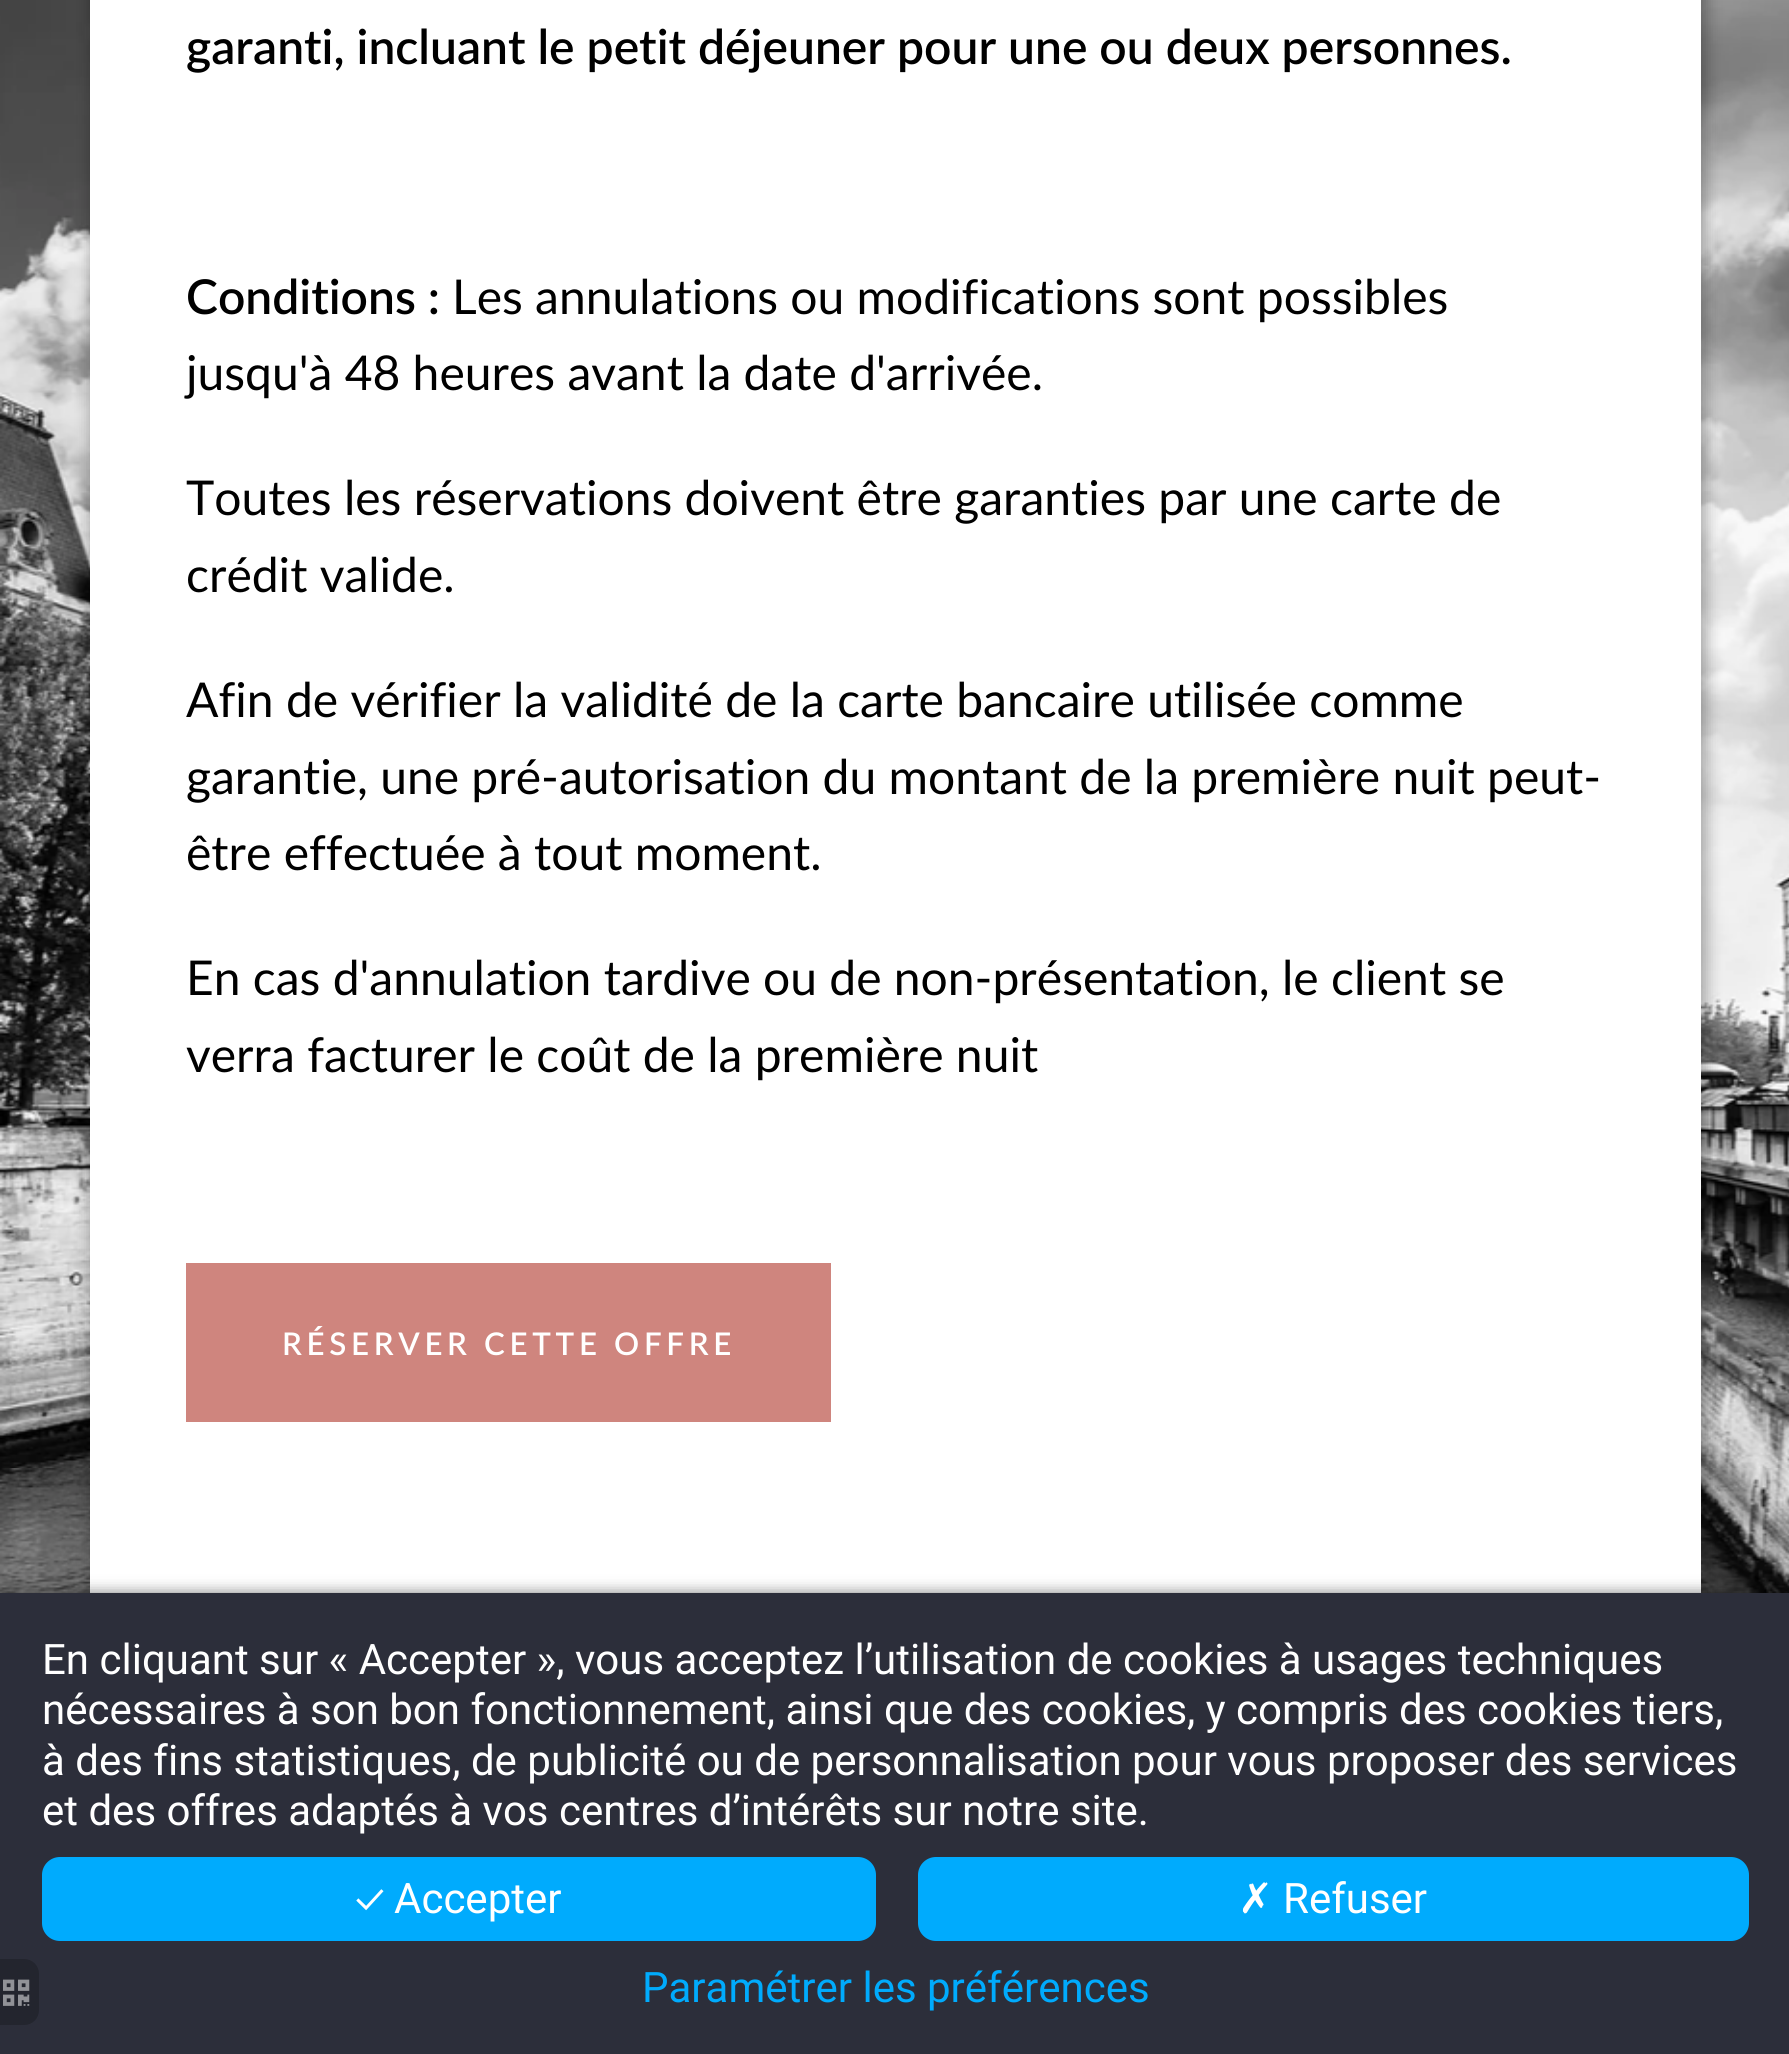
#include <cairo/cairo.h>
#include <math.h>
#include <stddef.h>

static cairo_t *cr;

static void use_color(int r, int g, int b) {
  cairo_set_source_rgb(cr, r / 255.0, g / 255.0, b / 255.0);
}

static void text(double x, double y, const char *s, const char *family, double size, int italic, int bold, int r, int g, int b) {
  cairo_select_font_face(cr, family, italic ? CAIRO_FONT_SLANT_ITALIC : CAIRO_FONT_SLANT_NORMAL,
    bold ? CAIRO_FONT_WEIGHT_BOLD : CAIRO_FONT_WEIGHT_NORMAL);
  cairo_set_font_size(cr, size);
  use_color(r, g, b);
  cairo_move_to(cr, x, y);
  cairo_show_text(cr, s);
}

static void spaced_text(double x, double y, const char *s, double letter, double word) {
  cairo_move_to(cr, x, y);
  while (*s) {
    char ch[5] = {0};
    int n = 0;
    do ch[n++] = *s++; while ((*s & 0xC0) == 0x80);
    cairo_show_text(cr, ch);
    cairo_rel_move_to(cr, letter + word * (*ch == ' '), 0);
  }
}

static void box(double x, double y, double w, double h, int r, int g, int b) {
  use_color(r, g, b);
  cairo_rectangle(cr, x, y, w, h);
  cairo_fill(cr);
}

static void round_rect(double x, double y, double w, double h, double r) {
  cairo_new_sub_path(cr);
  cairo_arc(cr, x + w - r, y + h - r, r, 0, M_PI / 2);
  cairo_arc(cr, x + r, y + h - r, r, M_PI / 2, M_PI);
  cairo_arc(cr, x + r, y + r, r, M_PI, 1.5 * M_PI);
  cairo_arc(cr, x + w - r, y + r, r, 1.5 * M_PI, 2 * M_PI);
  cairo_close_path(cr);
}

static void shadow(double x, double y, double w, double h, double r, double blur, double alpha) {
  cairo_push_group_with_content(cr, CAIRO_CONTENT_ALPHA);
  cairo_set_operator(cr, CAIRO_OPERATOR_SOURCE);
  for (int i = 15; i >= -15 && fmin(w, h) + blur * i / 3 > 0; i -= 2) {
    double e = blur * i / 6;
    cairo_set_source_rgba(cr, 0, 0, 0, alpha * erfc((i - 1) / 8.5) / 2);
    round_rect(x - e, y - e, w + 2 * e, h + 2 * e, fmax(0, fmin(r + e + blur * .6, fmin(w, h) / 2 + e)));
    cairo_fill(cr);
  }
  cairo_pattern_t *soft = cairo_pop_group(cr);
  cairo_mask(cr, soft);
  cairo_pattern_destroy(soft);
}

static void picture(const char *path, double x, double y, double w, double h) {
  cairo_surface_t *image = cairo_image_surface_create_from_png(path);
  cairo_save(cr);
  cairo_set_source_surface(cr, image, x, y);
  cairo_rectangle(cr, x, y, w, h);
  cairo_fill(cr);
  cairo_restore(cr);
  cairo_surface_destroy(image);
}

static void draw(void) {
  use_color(255, 255, 255);
  cairo_paint(cr);
  picture("img_01.png", 0, 0, 1789, 1593);
  use_color(0, 0, 0);
  shadow(90, -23, 1617, 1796, 0, 7.5, 0.3);
  box(90, 0, 1611, 1593, 255, 255, 255);
  box(186, 1263, 645, 159, 207, 133, 126);
  use_color(0, 0, 0);
  shadow(0, 1593, 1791, 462, 0, 7.5, 0.5);
  box(0, 1593, 1789, 461, 44, 46, 58);
  use_color(35, 37, 46);
  cairo_new_path(cr);
  cairo_move_to(cr, 0, 1959);
  cairo_line_to(cr, 24, 1959);
  cairo_curve_to(cr, 32.5, 1959, 39, 1965.5, 39, 1974);
  cairo_line_to(cr, 39, 2010);
  cairo_curve_to(cr, 39, 2018.5, 32.5, 2025, 24, 2025);
  cairo_line_to(cr, 0, 2025);
  cairo_close_path(cr);
  cairo_fill(cr);
  picture("img_02.png", 3, 1979, 27, 27);
  use_color(0, 171, 253);
  round_rect(42, 1857, 834, 84, 18);
  cairo_fill(cr);
  round_rect(918, 1857, 831, 84, 18);
  cairo_fill(cr);
  text(186, 64, "garanti, incluant le petit déjeuner pour une ou deux personnes.", "Lato SemiBold", 48, 0, 0, 0, 0, 0);
  text(186, 314, "Conditions :", "Lato SemiBold", 48, 0, 0, 0, 0, 0);
  text(452, 314, "Les annulations ou modifications sont possibles", "Lato", 48, 0, 0, 0, 0, 0);
  text(186, 390, "jusqu'à 48 heures avant la date d'arrivée.", "Lato", 48, 0, 0, 0, 0, 0);
  text(186, 515, "Toutes les réservations doivent être garanties par une carte de", "Lato", 48, 0, 0, 0, 0, 0);
  text(186, 592, "crédit valide.", "Lato", 48, 0, 0, 0, 0, 0);
  text(186, 717, "Afin de vérifier la validité de la carte bancaire utilisée comme", "Lato", 48, 0, 0, 0, 0, 0);
  text(186, 794, "garantie, une pré-autorisation du montant de la première nuit peut-", "Lato", 48, 0, 0, 0, 0, 0);
  text(186, 870, "être effectuée à tout moment.", "Lato", 48, 0, 0, 0, 0, 0);
  text(186, 995, "En cas d'annulation tardive ou de non-présentation, le client se", "Lato", 48, 0, 0, 0, 0, 0);
  text(186, 1072, "verra facturer le coût de la première nuit", "Lato", 48, 0, 0, 0, 0, 0);
  cairo_select_font_face(cr, "Lato SemiBold", CAIRO_FONT_SLANT_NORMAL, CAIRO_FONT_WEIGHT_NORMAL);
  cairo_set_font_size(cr, 31.25);
  use_color(255, 255, 255);
  spaced_text(282, 1355, "RÉSERVER CETTE OFFRE", 4.7, 0);
  text(42, 1674, "En cliquant sur « Accepter », vous acceptez l’utilisation de cookies à usages techniques", "Roboto", 42, 0, 0, 255, 255, 255);
  text(42, 1724, "nécessaires à son bon fonctionnement, ainsi que des cookies, y compris des cookies tiers,", "Roboto", 42, 0, 0, 255, 255, 255);
  text(42, 1775, "à des fins statistiques, de publicité ou de personnalisation pour vous proposer des services", "Roboto", 42, 0, 0, 255, 255, 255);
  text(42, 1825, "et des offres adaptés à vos centres d’intérêts sur notre site.", "Roboto", 42, 0, 0, 255, 255, 255);
  text(355, 1913, "✓", "Ubuntu", 42, 0, 0, 255, 255, 255);
  text(394, 1913, "Accepter", "Roboto", 42, 0, 0, 255, 255, 255);
  text(1238, 1913, "✗", "DejaVu Sans", 42, 0, 0, 255, 255, 255);
  text(1283, 1913, "Refuser", "Roboto", 42, 0, 0, 255, 255, 255);
  text(642, 2002, "Paramétrer les préférences", "Roboto", 42, 0, 0, 0, 171, 253);
}

int main(void) {
  cairo_surface_t *surface = cairo_image_surface_create(CAIRO_FORMAT_RGB24, 1789, 2054);
  cr = cairo_create(surface);
  cairo_font_options_t *options = cairo_font_options_create();
  cairo_font_options_set_hint_metrics(options, CAIRO_HINT_METRICS_OFF);
  cairo_font_options_set_hint_style(options, CAIRO_HINT_STYLE_NONE);
  cairo_set_font_options(cr, options);
  cairo_set_miter_limit(cr, 4);
  draw();
  cairo_surface_write_to_png(surface, "out.png");
  cairo_font_options_destroy(options);
  cairo_destroy(cr);
  cairo_surface_destroy(surface);
  return 0;
}
